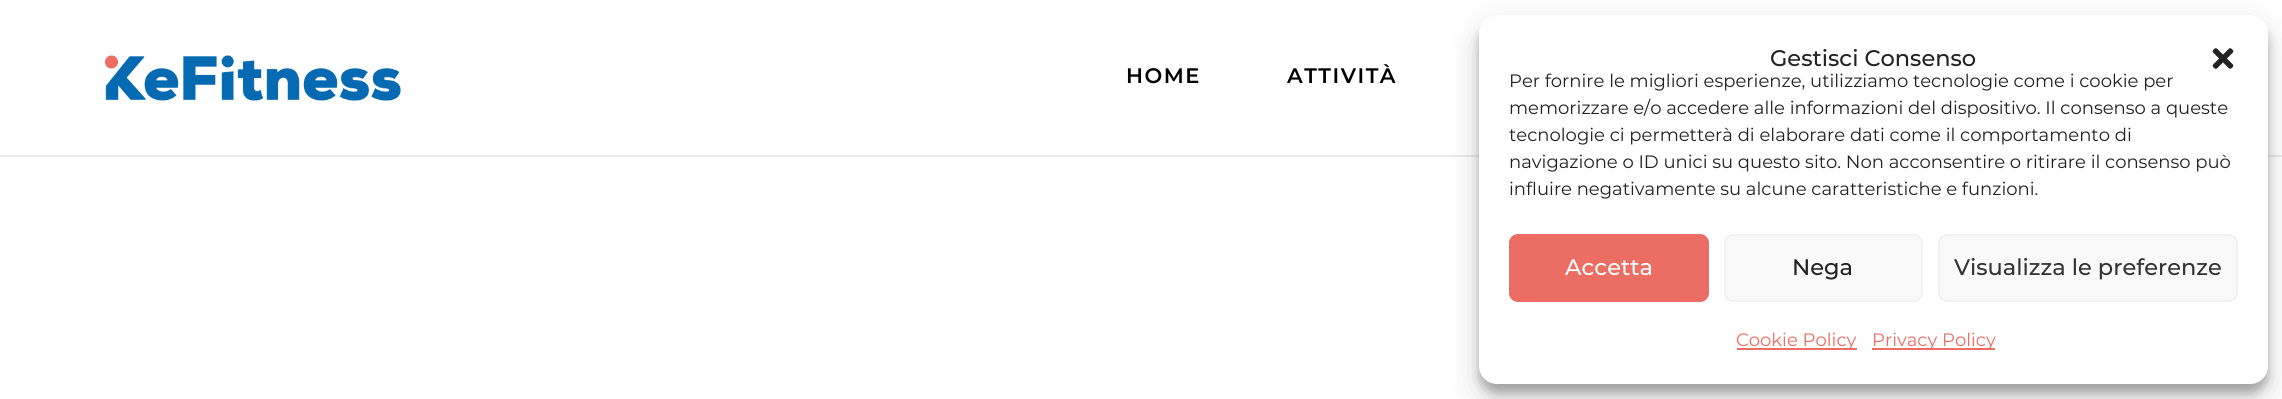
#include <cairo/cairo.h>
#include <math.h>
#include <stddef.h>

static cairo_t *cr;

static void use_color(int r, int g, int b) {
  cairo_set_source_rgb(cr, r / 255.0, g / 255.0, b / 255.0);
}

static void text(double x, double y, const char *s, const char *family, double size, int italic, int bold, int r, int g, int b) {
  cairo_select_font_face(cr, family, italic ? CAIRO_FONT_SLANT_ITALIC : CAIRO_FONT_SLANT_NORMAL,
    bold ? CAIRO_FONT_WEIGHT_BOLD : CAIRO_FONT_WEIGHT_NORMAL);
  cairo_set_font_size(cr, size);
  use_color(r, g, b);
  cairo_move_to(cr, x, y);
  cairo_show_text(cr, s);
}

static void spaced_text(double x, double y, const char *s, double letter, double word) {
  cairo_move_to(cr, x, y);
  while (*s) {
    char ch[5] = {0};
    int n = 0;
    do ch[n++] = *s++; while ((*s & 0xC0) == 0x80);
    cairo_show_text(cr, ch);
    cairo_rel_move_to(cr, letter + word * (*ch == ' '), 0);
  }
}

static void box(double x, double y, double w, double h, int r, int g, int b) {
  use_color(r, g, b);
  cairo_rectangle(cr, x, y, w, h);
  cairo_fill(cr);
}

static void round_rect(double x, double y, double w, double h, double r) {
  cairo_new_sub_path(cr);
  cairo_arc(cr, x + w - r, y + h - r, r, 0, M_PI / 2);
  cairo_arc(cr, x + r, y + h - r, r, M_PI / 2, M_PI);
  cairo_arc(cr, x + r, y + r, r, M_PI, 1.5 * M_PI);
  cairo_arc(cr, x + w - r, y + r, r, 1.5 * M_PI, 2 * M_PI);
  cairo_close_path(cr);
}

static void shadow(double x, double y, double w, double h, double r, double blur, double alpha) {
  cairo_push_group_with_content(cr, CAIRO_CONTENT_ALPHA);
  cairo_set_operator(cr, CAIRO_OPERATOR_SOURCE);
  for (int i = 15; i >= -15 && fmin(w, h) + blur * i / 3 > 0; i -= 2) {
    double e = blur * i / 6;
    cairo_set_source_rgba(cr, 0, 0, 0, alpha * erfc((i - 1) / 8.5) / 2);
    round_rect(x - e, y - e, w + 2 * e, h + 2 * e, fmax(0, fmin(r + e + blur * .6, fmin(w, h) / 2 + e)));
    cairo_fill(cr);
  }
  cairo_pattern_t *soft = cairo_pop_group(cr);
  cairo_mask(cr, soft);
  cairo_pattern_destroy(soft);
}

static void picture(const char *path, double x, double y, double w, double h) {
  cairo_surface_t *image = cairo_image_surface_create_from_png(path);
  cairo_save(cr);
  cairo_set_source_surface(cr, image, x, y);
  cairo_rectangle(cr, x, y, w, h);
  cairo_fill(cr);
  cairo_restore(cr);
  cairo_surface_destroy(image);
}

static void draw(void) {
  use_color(255, 255, 255);
  cairo_paint(cr);
  box(0, 155, 2282, 2, 233, 233, 233);
  picture("img_01.png", 105, 55, 296, 46);
  use_color(0, 0, 0);
  shadow(1479, 24, 789, 369, 18, 4.5, 0.23);
  shadow(1479, 30, 789, 369, 18, 15, 0.19);
  use_color(255, 255, 255);
  round_rect(1479, 15, 789, 369, 18);
  cairo_fill(cr);
  picture("img_02.png", 2212, 48, 22, 21);
  use_color(236, 109, 99);
  round_rect(1510, 235, 198, 66, 8);
  cairo_fill_preserve(cr);
  cairo_stroke(cr);
  use_color(249, 249, 249);
  round_rect(1725, 235, 197, 66, 8);
  cairo_fill_preserve(cr);
  use_color(242, 242, 242);
  cairo_stroke(cr);
  use_color(249, 249, 249);
  round_rect(1939, 235, 298, 66, 8);
  cairo_fill_preserve(cr);
  use_color(242, 242, 242);
  cairo_stroke(cr);
  box(1737, 348, 120, 2, 236, 109, 99);
  box(1872, 348, 123, 2, 236, 109, 99);
  cairo_select_font_face(cr, "Montserrat SemiBold", CAIRO_FONT_SLANT_NORMAL, CAIRO_FONT_WEIGHT_NORMAL);
  cairo_set_font_size(cr, 21);
  use_color(0, 0, 0);
  spaced_text(1126, 83, "HOME", 1.5, 0);
  spaced_text(1287, 83, "ATTIVITÀ", 1.5, 0);
  text(1770, 66, "Gestisci Consenso", "Montserrat Medium", 22.5, 0, 0, 34, 34, 34);
  text(1509, 87, "Per fornire le migliori esperienze, utilizziamo tecnologie come i cookie per", "Montserrat", 18, 0, 0, 34, 34, 34);
  text(1509, 114, "memorizzare e/o accedere alle informazioni del dispositivo. Il consenso a queste", "Montserrat", 18, 0, 0, 34, 34, 34);
  text(1509, 141, "tecnologie ci permetterà di elaborare dati come il comportamento di", "Montserrat", 18, 0, 0, 34, 34, 34);
  text(1509, 168, "navigazione o ID unici su questo sito. Non acconsentire o ritirare il consenso può", "Montserrat", 18, 0, 0, 34, 34, 34);
  text(1509, 195, "influire negativamente su alcune caratteristiche e funzioni.", "Montserrat", 18, 0, 0, 34, 34, 34);
  text(1565, 275, "Accetta", "Montserrat Medium", 22.5, 0, 0, 255, 255, 255);
  text(1792, 275, "Nega", "Montserrat Medium", 22.5, 0, 0, 34, 34, 34);
  text(1954, 275, "Visualizza le preferenze", "Montserrat Medium", 22.5, 0, 0, 51, 51, 51);
  text(1736, 346, "Cookie Policy", "Montserrat", 18, 0, 0, 236, 109, 99);
  text(1872, 346, "Privacy Policy", "Montserrat", 18, 0, 0, 236, 109, 99);
}

int main(void) {
  cairo_surface_t *surface = cairo_image_surface_create(CAIRO_FORMAT_RGB24, 2282, 399);
  cr = cairo_create(surface);
  cairo_font_options_t *options = cairo_font_options_create();
  cairo_font_options_set_hint_metrics(options, CAIRO_HINT_METRICS_OFF);
  cairo_font_options_set_hint_style(options, CAIRO_HINT_STYLE_NONE);
  cairo_set_font_options(cr, options);
  cairo_set_miter_limit(cr, 4);
  draw();
  cairo_surface_write_to_png(surface, "out.png");
  cairo_font_options_destroy(options);
  cairo_destroy(cr);
  cairo_surface_destroy(surface);
  return 0;
}
